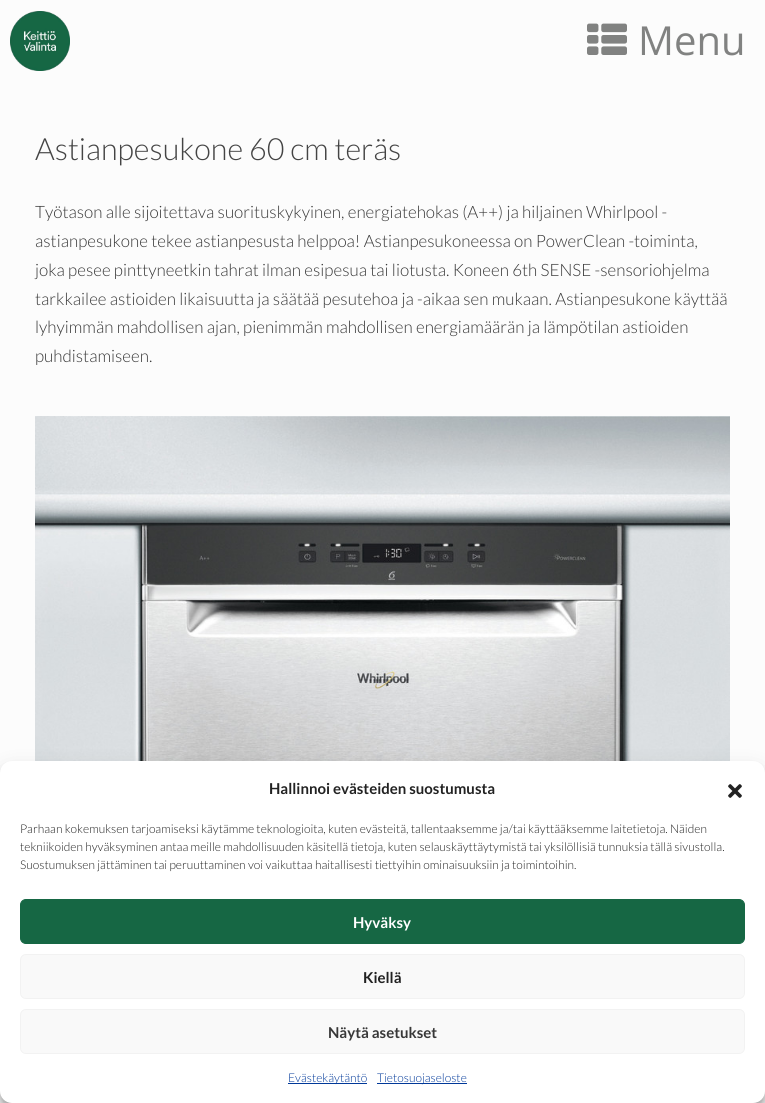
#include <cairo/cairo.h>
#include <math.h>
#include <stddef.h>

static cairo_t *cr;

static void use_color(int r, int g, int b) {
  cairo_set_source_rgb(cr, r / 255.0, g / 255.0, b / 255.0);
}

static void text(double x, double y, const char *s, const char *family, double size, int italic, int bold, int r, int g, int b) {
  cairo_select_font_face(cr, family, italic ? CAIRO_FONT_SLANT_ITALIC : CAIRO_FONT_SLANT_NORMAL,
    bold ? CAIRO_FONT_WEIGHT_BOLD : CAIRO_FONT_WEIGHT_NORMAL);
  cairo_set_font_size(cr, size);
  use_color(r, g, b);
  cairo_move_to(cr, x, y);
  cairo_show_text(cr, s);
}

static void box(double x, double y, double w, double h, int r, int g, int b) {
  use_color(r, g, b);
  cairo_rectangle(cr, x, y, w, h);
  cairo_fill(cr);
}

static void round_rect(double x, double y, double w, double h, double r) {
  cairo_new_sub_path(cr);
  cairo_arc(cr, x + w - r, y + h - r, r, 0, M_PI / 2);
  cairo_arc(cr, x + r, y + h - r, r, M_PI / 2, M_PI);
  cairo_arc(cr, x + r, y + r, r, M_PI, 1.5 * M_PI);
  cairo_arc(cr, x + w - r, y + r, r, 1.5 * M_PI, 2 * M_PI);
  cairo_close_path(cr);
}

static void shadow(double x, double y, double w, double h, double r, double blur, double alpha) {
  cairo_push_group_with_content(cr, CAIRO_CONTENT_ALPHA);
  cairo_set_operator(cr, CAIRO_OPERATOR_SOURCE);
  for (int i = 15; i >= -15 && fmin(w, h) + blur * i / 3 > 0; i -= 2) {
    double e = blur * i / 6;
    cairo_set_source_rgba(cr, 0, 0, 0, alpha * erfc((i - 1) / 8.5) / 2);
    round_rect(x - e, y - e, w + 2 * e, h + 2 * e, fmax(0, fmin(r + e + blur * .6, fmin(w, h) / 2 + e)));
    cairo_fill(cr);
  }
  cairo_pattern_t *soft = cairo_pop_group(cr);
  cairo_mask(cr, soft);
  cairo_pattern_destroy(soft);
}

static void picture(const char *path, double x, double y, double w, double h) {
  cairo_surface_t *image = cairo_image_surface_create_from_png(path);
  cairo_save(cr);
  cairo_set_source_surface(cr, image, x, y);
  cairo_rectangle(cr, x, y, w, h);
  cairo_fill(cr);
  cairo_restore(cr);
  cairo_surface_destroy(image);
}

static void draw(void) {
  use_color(252, 252, 252);
  cairo_paint(cr);
  picture("img_01.png", 10, 11, 60, 60);
  picture("img_02.png", 587, 23, 40, 32);
  picture("img_03.png", 35, 416, 695, 345);
  use_color(0, 0, 0);
  shadow(0, 767, 765, 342, 12, 3, 0.23);
  shadow(0, 771, 765, 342, 12, 10, 0.19);
  use_color(255, 255, 255);
  round_rect(0, 761, 765, 342, 12);
  cairo_fill(cr);
  picture("img_04.png", 728, 784, 14, 14);
  use_color(22, 103, 68);
  round_rect(20.5, 899.5, 724, 44, 5.5);
  cairo_fill_preserve(cr);
  cairo_set_line_width(cr, 1);
  cairo_stroke(cr);
  use_color(249, 249, 249);
  round_rect(20.5, 954.5, 724, 44, 5.5);
  cairo_fill_preserve(cr);
  use_color(242, 242, 242);
  cairo_stroke(cr);
  use_color(249, 249, 249);
  round_rect(20.5, 1009.5, 724, 44, 5.5);
  cairo_fill_preserve(cr);
  use_color(242, 242, 242);
  cairo_stroke(cr);
  box(288, 1083, 79, 1, 0, 56, 153);
  box(377, 1083, 90, 1, 0, 56, 153);
  text(638, 55, "Menu", "Open Sans", 40, 0, 0, 129, 130, 129);
  text(35, 160, "Astianpesukone 60 cm teräs", "Lato Light", 30.6, 0, 0, 68, 68, 68);
  text(35, 218, "Työtason alle sijoitettava suorituskykyinen, energiatehokas (A++) ja hiljainen Whirlpool -", "Lato Light", 17, 0, 0, 56, 56, 56);
  text(35, 247, "astianpesukone tekee astianpesusta helppoa! Astianpesukoneessa on PowerClean -toiminta,", "Lato Light", 17, 0, 0, 56, 56, 56);
  text(35, 276, "joka pesee pinttyneetkin tahrat ilman esipesua tai liotusta. Koneen 6th SENSE -sensoriohjelma", "Lato Light", 17, 0, 0, 56, 56, 56);
  text(35, 305, "tarkkailee astioiden likaisuutta ja säätää pesutehoa ja -aikaa sen mukaan. Astianpesukone käyttää", "Lato Light", 17, 0, 0, 56, 56, 56);
  text(35, 333, "lyhyimmän mahdollisen ajan, pienimmän mahdollisen energiamäärän ja lämpötilan astioiden", "Lato Light", 17, 0, 0, 56, 56, 56);
  text(35, 362, "puhdistamiseen.", "Lato Light", 17, 0, 0, 56, 56, 56);
  text(269, 794, "Hallinnoi evästeiden suostumusta", "Lato", 15, 0, 1, 34, 34, 34);
  text(20, 833, "Parhaan kokemuksen tarjoamiseksi käytämme teknologioita, kuten evästeitä, tallentaaksemme ja/tai käyttääksemme laitetietoja. Näiden", "Lato Light", 12, 0, 0, 34, 34, 34);
  text(20, 851, "tekniikoiden hyväksyminen antaa meille mahdollisuuden käsitellä tietoja, kuten selauskäyttäytymistä tai yksilöllisiä tunnuksia tällä sivustolla.", "Lato Light", 12, 0, 0, 34, 34, 34);
  text(20, 869, "Suostumuksen jättäminen tai peruuttaminen voi vaikuttaa haitallisesti tiettyihin ominaisuuksiin ja toimintoihin.", "Lato Light", 12, 0, 0, 34, 34, 34);
  text(353, 928, "Hyväksy", "Lato", 15, 0, 1, 255, 255, 255);
  text(363, 983, "Kiellä", "Lato", 15, 0, 1, 34, 34, 34);
  text(328, 1038, "Näytä asetukset", "Lato", 15, 0, 1, 56, 56, 56);
  text(288, 1082, "Evästekäytäntö", "Lato Light", 12, 0, 0, 0, 56, 153);
  text(377, 1082, "Tietosuojaseloste", "Lato Light", 12, 0, 0, 0, 56, 153);
}

int main(void) {
  cairo_surface_t *surface = cairo_image_surface_create(CAIRO_FORMAT_RGB24, 765, 1103);
  cr = cairo_create(surface);
  cairo_font_options_t *options = cairo_font_options_create();
  cairo_font_options_set_hint_metrics(options, CAIRO_HINT_METRICS_OFF);
  cairo_font_options_set_hint_style(options, CAIRO_HINT_STYLE_NONE);
  cairo_set_font_options(cr, options);
  cairo_set_miter_limit(cr, 4);
  draw();
  cairo_surface_write_to_png(surface, "out.png");
  cairo_font_options_destroy(options);
  cairo_destroy(cr);
  cairo_surface_destroy(surface);
  return 0;
}
